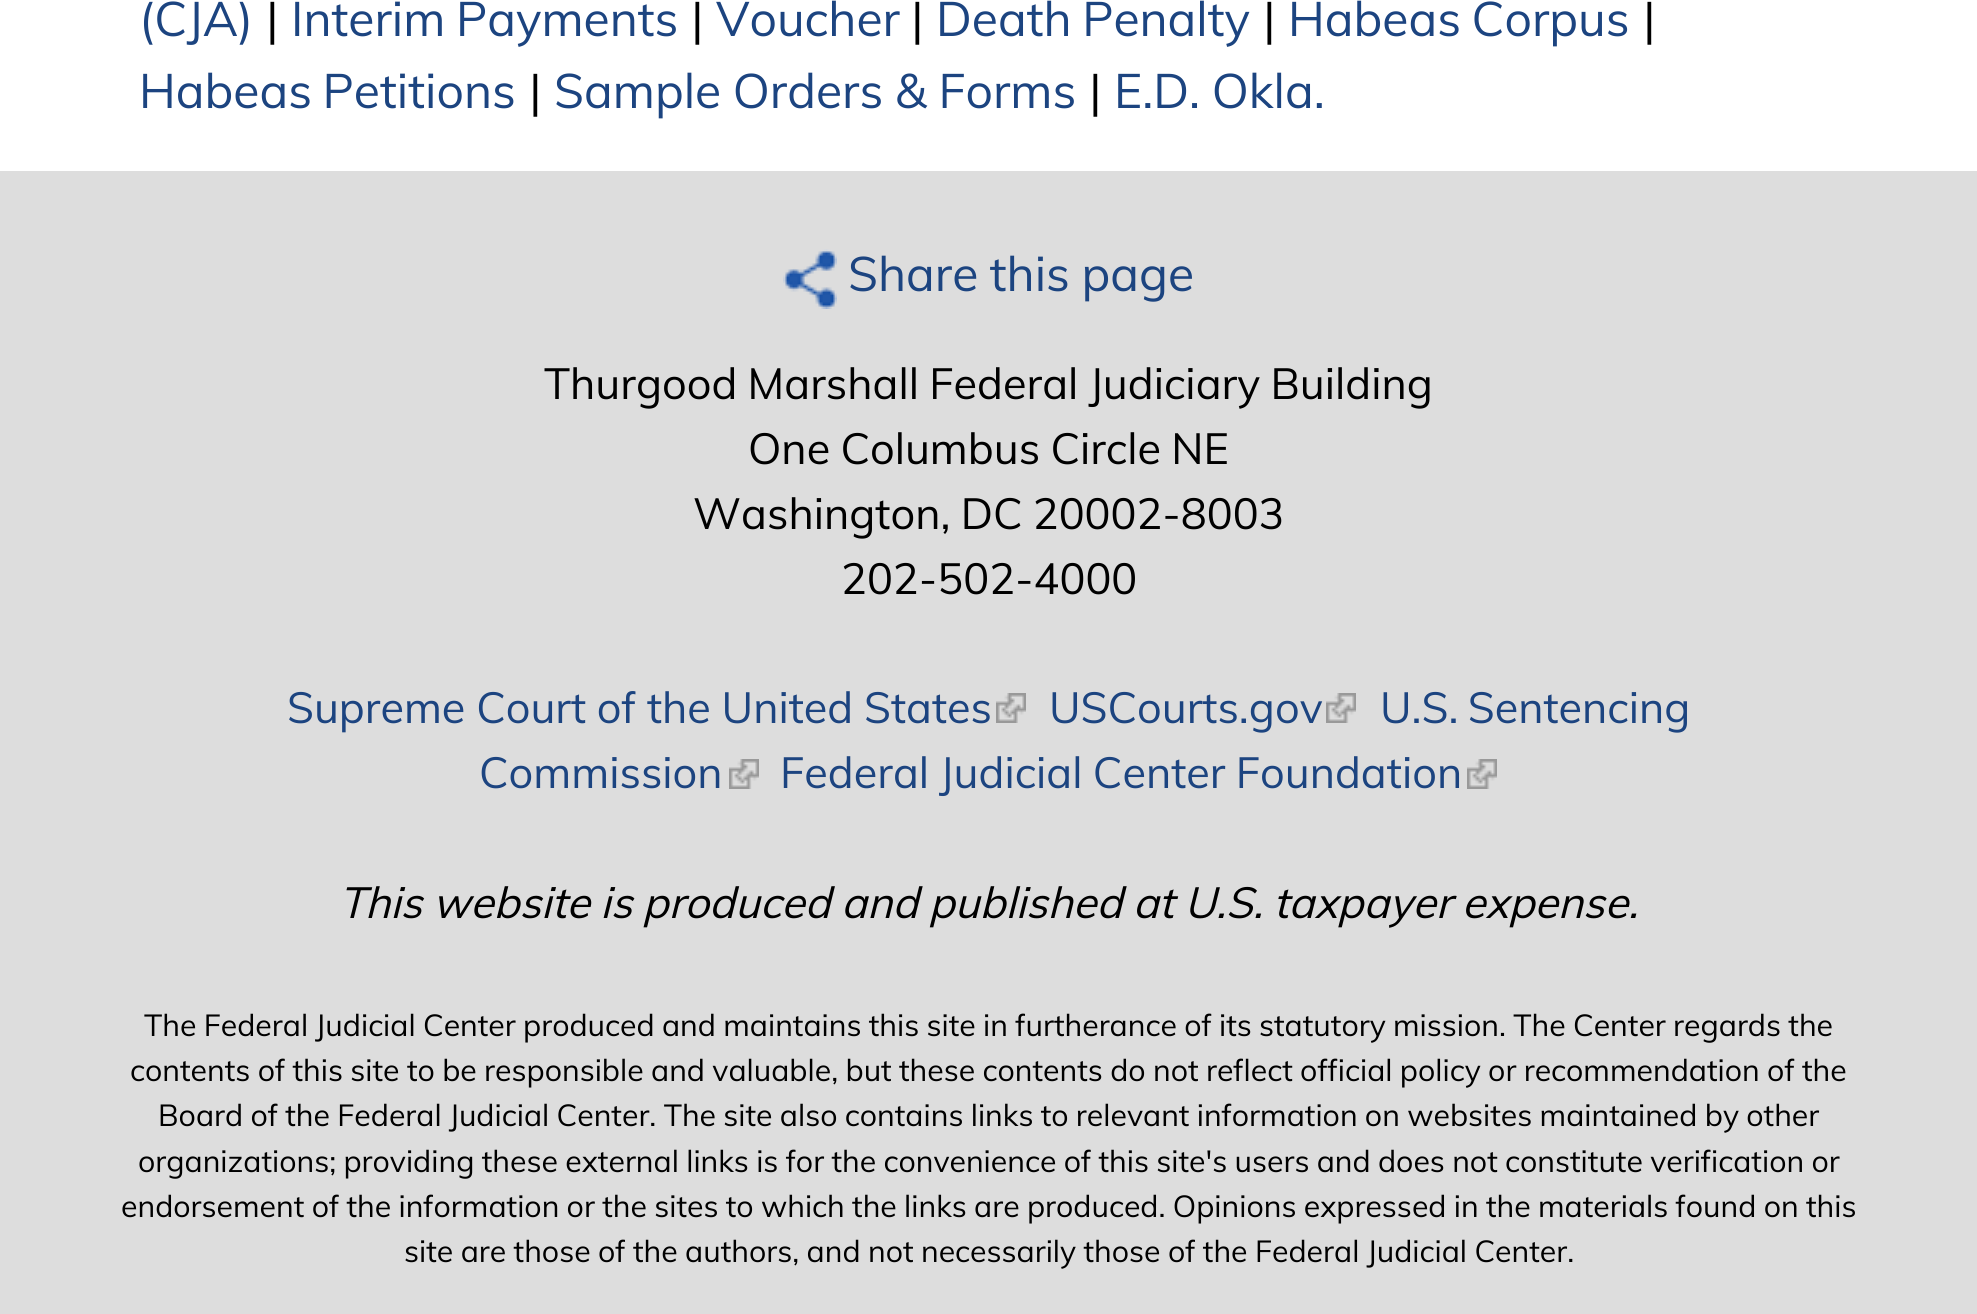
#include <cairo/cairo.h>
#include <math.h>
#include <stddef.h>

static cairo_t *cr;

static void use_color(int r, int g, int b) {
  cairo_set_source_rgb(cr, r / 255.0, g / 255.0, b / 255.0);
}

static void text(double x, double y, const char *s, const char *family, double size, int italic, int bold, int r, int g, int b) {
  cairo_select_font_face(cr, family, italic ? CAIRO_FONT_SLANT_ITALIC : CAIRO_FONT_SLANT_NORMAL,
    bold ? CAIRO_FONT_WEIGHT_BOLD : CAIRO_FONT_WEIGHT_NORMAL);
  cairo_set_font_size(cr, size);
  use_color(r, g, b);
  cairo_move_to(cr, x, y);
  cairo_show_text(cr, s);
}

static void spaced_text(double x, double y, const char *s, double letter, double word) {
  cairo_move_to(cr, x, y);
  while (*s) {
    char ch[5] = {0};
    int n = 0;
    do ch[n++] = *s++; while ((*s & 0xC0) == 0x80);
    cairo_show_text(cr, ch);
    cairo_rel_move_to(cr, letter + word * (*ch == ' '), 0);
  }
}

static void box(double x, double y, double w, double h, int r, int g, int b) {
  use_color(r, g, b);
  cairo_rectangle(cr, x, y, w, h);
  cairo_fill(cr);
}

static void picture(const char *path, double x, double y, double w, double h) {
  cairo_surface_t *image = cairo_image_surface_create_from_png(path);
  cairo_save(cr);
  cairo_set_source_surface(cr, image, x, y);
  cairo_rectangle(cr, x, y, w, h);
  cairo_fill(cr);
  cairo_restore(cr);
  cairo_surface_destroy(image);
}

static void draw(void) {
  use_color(255, 255, 255);
  cairo_paint(cr);
  box(0, 171, 1977, 1143, 221, 221, 221);
  picture("img_01.png", 783, 249, 54, 60);
  picture("img_02.png", 996, 693, 30, 30);
  picture("img_03.png", 1326, 693, 30, 30);
  picture("img_03.png", 729, 759, 30, 30);
  picture("img_03.png", 1467, 759, 30, 30);
  text(139, 36, "(CJA)", "Muli", 48, 0, 0, 28, 68, 128);
  text(266, 36, "|", "Muli", 48, 0, 0, 0, 0, 0);
  use_color(28, 68, 128);
  spaced_text(291, 36, "Interim Payments", 0, -2);
  text(691, 36, "|", "Muli", 48, 0, 0, 0, 0, 0);
  text(716, 36, "Voucher", "Muli", 48, 0, 0, 28, 68, 128);
  text(911, 36, "|", "Muli", 48, 0, 0, 0, 0, 0);
  use_color(28, 68, 128);
  spaced_text(936, 36, "Death Penalty", 0, -2);
  text(1263, 36, "|", "Muli", 48, 0, 0, 0, 0, 0);
  use_color(28, 68, 128);
  spaced_text(1288, 36, "Habeas Corpus", 0, -2);
  text(1643, 36, "|", "Muli", 48, 0, 0, 0, 0, 0);
  use_color(28, 68, 128);
  spaced_text(139, 108, "Habeas Petitions", 0, -2);
  text(529, 108, "|", "Muli", 48, 0, 0, 0, 0, 0);
  use_color(28, 68, 128);
  spaced_text(554, 108, "Sample Orders & Forms", 0, -1);
  text(1089, 108, "|", "Muli", 48, 0, 0, 0, 0, 0);
  use_color(28, 68, 128);
  spaced_text(1114, 108, "E.D. Okla.", 0, -1);
  spaced_text(848, 291, "Share this page", 0, -1);
  cairo_set_font_size(cr, 43.2);
  use_color(0, 0, 0);
  spaced_text(544, 399, "Thurgood Marshall Federal Judiciary Building", 0, -1);
  spaced_text(748, 464, "One Columbus Circle NE", 0, -1);
  spaced_text(693, 529, "Washington, DC 20002-8003", 0, -1);
  text(841, 594, "202-502-4000", "Muli", 43.2, 0, 0, 0, 0, 0);
  use_color(28, 68, 128);
  spaced_text(287, 723, "Supreme Court of the United States", 0, -0.5);
  text(1049, 723, "USCourts.gov", "Muli", 43.2, 0, 0, 28, 68, 128);
  spaced_text(1380, 723, "U.S. Sentencing", 0, -2);
  text(479, 788, "Commission", "Muli", 43.2, 0, 0, 28, 68, 128);
  spaced_text(780, 788, "Federal Judicial Center Foundation", 0, -1);
  cairo_select_font_face(cr, "Muli", CAIRO_FONT_SLANT_ITALIC, CAIRO_FONT_WEIGHT_NORMAL);
  use_color(0, 0, 0);
  spaced_text(339, 918, "This website is produced and published at U.S. taxpayer expense.", 0, -0.75);
  cairo_select_font_face(cr, "Muli", CAIRO_FONT_SLANT_NORMAL, CAIRO_FONT_WEIGHT_NORMAL);
  cairo_set_font_size(cr, 30.25);
  spaced_text(144, 1036, "The Federal Judicial Center produced and maintains this site in furtherance of its statutory mission. The Center regards the", 0, -0.6);
  spaced_text(130, 1081, "contents of this site to be responsible and valuable, but these contents do not reflect official policy or recommendation of the", 0, -0.55);
  spaced_text(158, 1126, "Board of the Federal Judicial Center. The site also contains links to relevant information on websites maintained by other", 0, -0.6);
  spaced_text(138, 1172, "organizations; providing these external links is for the convenience of this site's users and does not constitute verification or", 0, -0.6);
  spaced_text(121, 1217, "endorsement of the information or the sites to which the links are produced. Opinions expressed in the materials found on this", 0, -0.6);
  spaced_text(404, 1262, "site are those of the authors, and not necessarily those of the Federal Judicial Center.", 0, -0.5);
}

int main(void) {
  cairo_surface_t *surface = cairo_image_surface_create(CAIRO_FORMAT_RGB24, 1977, 1314);
  cr = cairo_create(surface);
  cairo_font_options_t *options = cairo_font_options_create();
  cairo_font_options_set_hint_metrics(options, CAIRO_HINT_METRICS_OFF);
  cairo_font_options_set_hint_style(options, CAIRO_HINT_STYLE_NONE);
  cairo_set_font_options(cr, options);
  cairo_set_miter_limit(cr, 4);
  draw();
  cairo_surface_write_to_png(surface, "out.png");
  cairo_font_options_destroy(options);
  cairo_destroy(cr);
  cairo_surface_destroy(surface);
  return 0;
}
